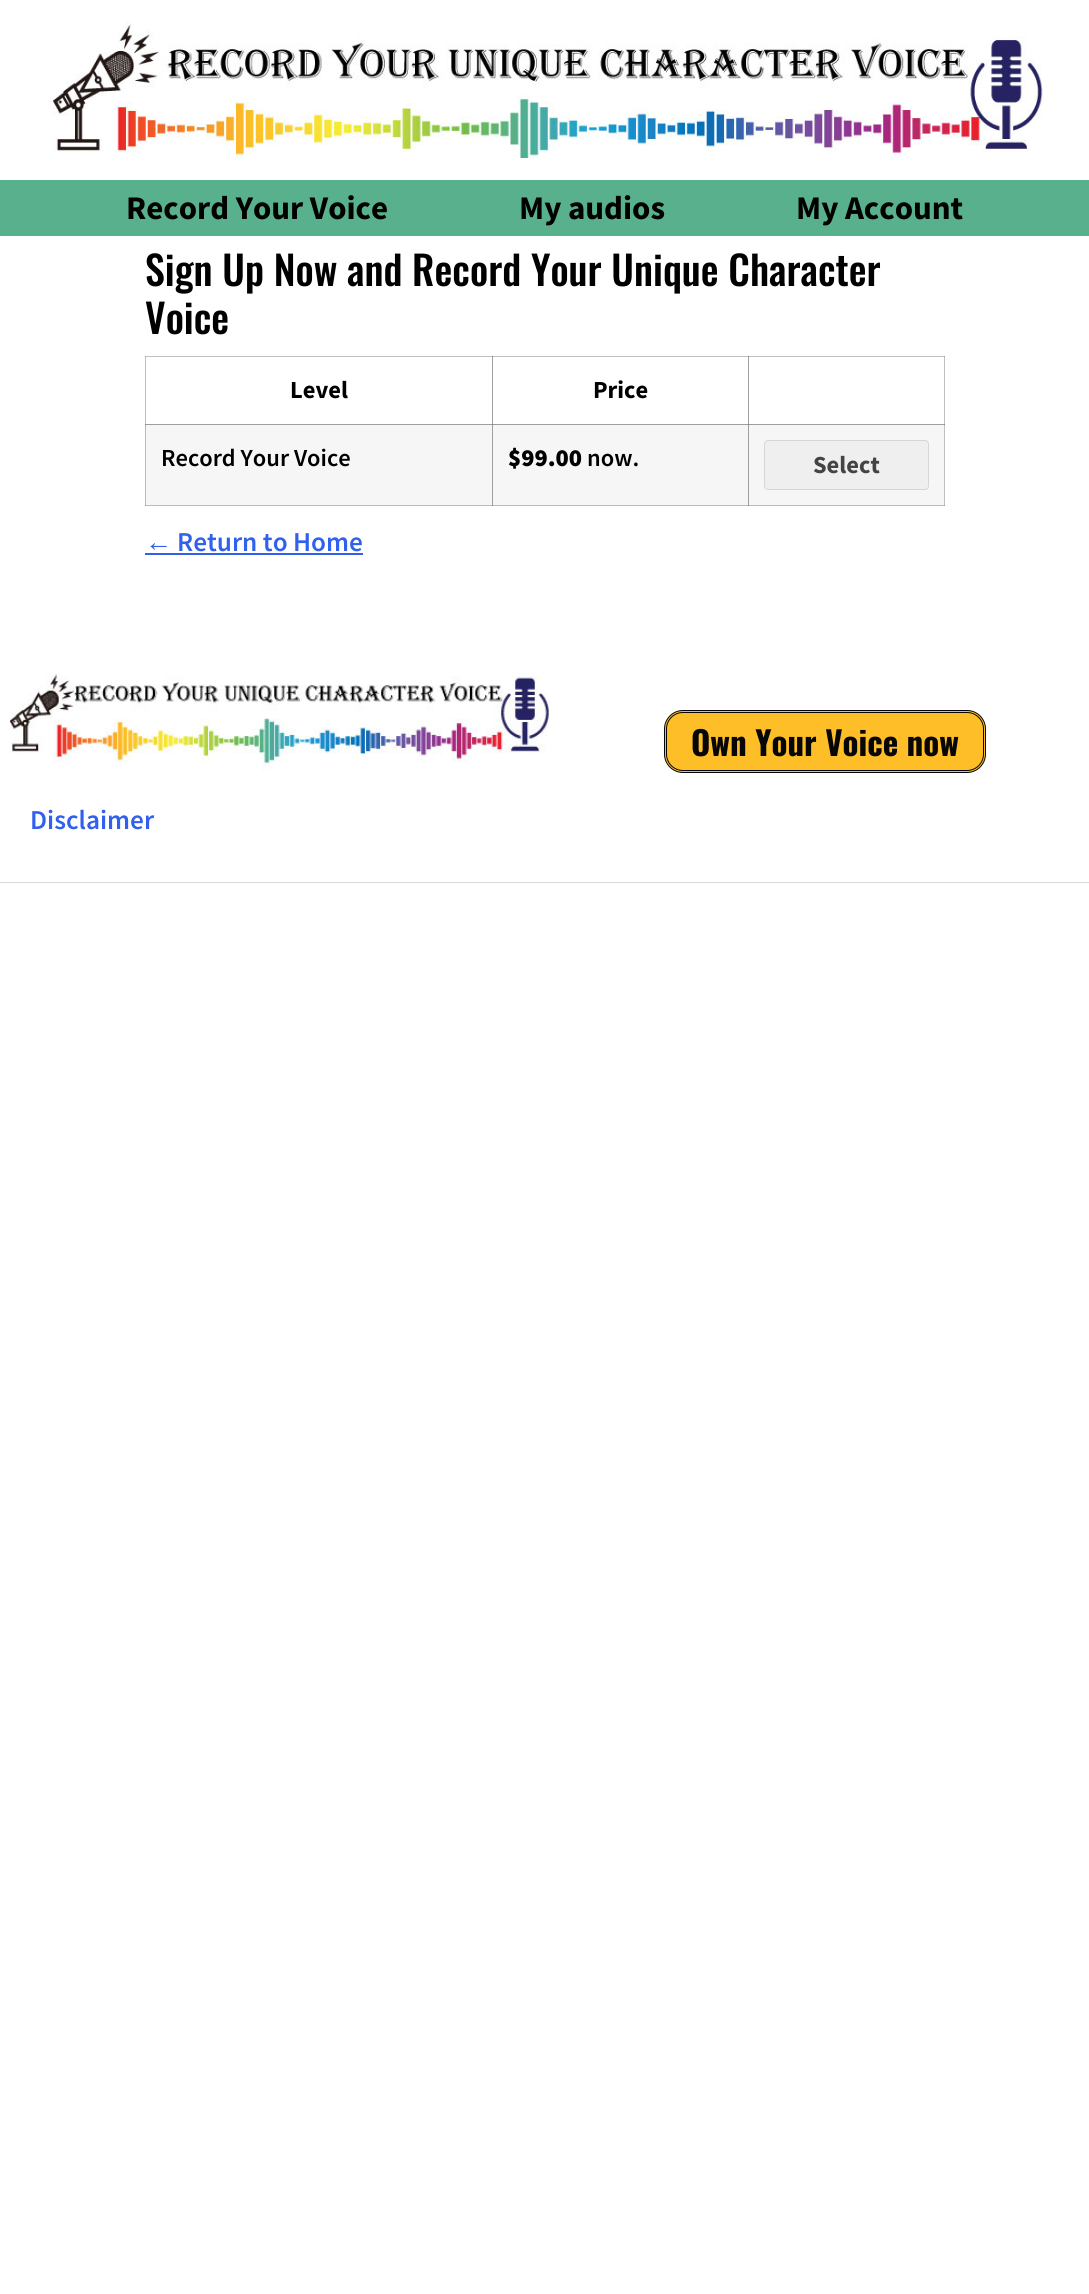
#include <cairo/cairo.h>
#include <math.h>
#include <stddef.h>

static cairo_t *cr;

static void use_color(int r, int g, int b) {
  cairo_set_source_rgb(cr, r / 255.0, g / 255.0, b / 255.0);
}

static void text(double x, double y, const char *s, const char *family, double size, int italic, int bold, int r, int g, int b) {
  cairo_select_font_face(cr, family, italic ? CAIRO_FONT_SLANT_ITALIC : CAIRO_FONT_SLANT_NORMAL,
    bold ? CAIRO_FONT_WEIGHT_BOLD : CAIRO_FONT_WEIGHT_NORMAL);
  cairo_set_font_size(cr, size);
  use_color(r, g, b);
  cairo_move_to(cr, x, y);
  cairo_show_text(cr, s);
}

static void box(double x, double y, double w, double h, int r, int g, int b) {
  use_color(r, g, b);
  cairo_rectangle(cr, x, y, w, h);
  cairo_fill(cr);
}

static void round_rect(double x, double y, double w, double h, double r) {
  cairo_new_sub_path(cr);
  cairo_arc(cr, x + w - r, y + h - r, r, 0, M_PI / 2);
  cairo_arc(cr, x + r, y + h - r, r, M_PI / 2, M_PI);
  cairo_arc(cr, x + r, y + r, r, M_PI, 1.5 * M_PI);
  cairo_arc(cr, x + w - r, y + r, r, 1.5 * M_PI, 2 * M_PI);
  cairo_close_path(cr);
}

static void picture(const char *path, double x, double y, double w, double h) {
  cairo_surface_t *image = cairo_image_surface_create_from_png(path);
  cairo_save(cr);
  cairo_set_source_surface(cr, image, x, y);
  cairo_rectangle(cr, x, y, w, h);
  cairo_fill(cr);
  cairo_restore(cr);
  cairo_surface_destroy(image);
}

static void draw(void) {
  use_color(255, 255, 255);
  cairo_paint(cr);
  box(145, 356, 1, 69, 192, 192, 192);
  box(145, 356, 348, 1, 192, 192, 192);
  box(145, 356, 1, 1, 160, 160, 160);
  box(492, 356, 1, 69, 160, 160, 160);
  box(492, 356, 257, 1, 192, 192, 192);
  box(492, 356, 1, 1, 136, 136, 136);
  box(748, 356, 1, 69, 160, 160, 160);
  box(944, 356, 1, 150, 192, 192, 192);
  box(944, 505, 1, 1, 160, 160, 160);
  box(944, 424, 1, 1, 136, 136, 136);
  picture("img_01.png", 52, 22, 992, 136);
  box(0, 180, 1089, 56, 88, 177, 140);
  box(748, 356, 197, 1, 192, 192, 192);
  box(748, 356, 1, 1, 136, 136, 136);
  box(944, 356, 1, 1, 160, 160, 160);
  box(146, 425, 346, 80, 246, 246, 246);
  box(145, 424, 1, 82, 187, 187, 187);
  box(145, 505, 799, 1, 187, 187, 187);
  box(145, 505, 1, 1, 158, 158, 158);
  box(145, 424, 799, 1, 158, 158, 158);
  box(145, 424, 1, 1, 136, 136, 136);
  box(492, 424, 1, 82, 158, 158, 158);
  box(492, 505, 1, 1, 136, 136, 136);
  box(492, 424, 1, 1, 129, 129, 129);
  box(493, 425, 255, 80, 246, 246, 246);
  box(748, 424, 1, 82, 158, 158, 158);
  box(748, 505, 1, 1, 136, 136, 136);
  box(748, 424, 1, 1, 129, 129, 129);
  box(749, 425, 195, 80, 246, 246, 246);
  use_color(239, 239, 239);
  round_rect(764.5, 440.5, 164, 49, 3.5);
  cairo_fill_preserve(cr);
  use_color(214, 214, 214);
  cairo_set_line_width(cr, 1);
  cairo_stroke(cr);
  box(145, 553, 218, 2, 48, 96, 236);
  use_color(253, 190, 40);
  round_rect(664.5, 710.5, 321, 62, 18.5);
  cairo_fill_preserve(cr);
  use_color(7, 7, 7);
  cairo_stroke(cr);
  round_rect(666.5, 712.5, 317, 58, 16.5);
  cairo_stroke(cr);
  picture("img_02.png", 10, 673, 541, 98);
  box(0, 882, 1089, 1, 216, 216, 216);
  text(126, 219, "Record Your Voice", "Source Sans Pro", 33, 0, 1, 0, 0, 0);
  text(519, 219, "My audios", "Source Sans Pro", 33, 0, 1, 0, 0, 0);
  text(796, 219, "My Account", "Source Sans Pro", 33, 0, 1, 0, 0, 0);
  text(145, 286, "Sign Up Now and Record Your Unique Character", "Oswald Medium", 40, 0, 0, 0, 0, 0);
  text(145, 334, "Voice", "Oswald Medium", 40, 0, 0, 0, 0, 0);
  text(290, 398, "Level", "Source Sans Pro", 24.5, 0, 1, 0, 0, 0);
  text(593, 398, "Price", "Source Sans Pro", 24.5, 0, 1, 0, 0, 0);
  text(161, 466, "Record Your Voice", "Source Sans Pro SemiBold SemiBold", 24.5, 0, 0, 0, 0, 0);
  text(508, 466, "$99.00", "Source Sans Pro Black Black", 24.5, 0, 0, 0, 0, 0);
  text(587, 466, "now.", "Source Sans Pro SemiBold SemiBold", 24.5, 0, 0, 0, 0, 0);
  text(813, 473, "Select", "Source Sans Pro", 24.5, 0, 1, 68, 68, 68);
  text(145, 551, "←", "Liberation Sans", 27.25, 0, 1, 48, 96, 236);
  text(177, 551, "Return to Home", "Source Sans Pro SemiBold SemiBold", 27.25, 0, 0, 48, 96, 236);
  text(691, 756, "Own Your Voice now", "Oswald", 33, 0, 1, 7, 7, 7);
  text(30, 829, "Disclaimer", "Source Sans Pro SemiBold SemiBold", 27.25, 0, 0, 48, 96, 236);
}

int main(void) {
  cairo_surface_t *surface = cairo_image_surface_create(CAIRO_FORMAT_RGB24, 1089, 2294);
  cr = cairo_create(surface);
  cairo_font_options_t *options = cairo_font_options_create();
  cairo_font_options_set_hint_metrics(options, CAIRO_HINT_METRICS_OFF);
  cairo_font_options_set_hint_style(options, CAIRO_HINT_STYLE_NONE);
  cairo_set_font_options(cr, options);
  cairo_set_miter_limit(cr, 4);
  draw();
  cairo_surface_write_to_png(surface, "out.png");
  cairo_font_options_destroy(options);
  cairo_destroy(cr);
  cairo_surface_destroy(surface);
  return 0;
}
